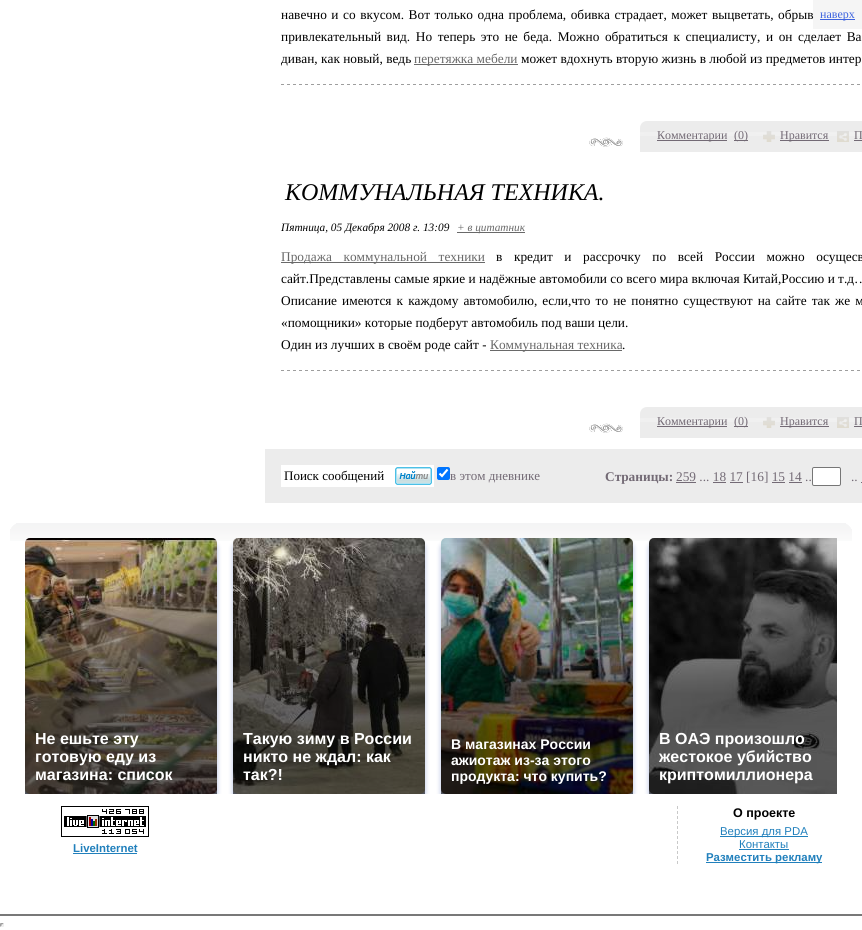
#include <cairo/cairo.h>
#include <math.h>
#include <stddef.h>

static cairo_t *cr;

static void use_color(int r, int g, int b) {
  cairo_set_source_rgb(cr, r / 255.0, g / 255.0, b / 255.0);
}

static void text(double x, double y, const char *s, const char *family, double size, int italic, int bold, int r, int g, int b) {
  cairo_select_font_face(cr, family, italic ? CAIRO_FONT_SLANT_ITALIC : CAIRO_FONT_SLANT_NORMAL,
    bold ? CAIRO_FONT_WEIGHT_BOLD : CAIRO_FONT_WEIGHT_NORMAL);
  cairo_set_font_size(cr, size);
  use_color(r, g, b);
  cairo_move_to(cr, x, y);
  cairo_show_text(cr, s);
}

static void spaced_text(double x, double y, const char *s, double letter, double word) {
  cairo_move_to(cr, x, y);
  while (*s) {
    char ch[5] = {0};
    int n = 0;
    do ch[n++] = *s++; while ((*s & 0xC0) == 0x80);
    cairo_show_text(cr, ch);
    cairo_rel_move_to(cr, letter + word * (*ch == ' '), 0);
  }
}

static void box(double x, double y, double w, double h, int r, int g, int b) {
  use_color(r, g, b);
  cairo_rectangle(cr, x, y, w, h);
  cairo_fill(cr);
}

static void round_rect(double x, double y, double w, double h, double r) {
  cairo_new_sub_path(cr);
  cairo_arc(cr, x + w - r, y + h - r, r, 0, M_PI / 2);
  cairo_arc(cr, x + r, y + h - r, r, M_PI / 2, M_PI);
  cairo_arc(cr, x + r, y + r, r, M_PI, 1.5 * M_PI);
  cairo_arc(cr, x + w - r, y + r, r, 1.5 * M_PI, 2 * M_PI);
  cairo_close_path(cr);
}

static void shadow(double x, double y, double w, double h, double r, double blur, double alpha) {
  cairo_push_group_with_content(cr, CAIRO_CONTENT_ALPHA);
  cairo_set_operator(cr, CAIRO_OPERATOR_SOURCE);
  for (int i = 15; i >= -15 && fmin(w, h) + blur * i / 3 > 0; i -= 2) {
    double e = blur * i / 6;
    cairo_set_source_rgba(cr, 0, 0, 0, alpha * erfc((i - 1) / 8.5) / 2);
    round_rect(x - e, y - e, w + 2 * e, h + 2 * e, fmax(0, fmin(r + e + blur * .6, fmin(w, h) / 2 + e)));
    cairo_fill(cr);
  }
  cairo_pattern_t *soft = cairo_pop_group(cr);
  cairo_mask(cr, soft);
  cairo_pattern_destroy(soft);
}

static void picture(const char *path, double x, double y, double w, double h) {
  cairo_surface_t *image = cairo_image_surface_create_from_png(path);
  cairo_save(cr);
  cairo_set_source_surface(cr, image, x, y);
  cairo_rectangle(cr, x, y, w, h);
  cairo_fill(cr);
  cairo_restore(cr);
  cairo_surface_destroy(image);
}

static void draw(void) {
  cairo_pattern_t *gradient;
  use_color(255, 255, 255);
  cairo_paint(cr);
  picture("img_01.png", 589, 137, 34, 10);
  picture("img_02.png", 281, 84, 579, 1);
  box(414, 64, 104, 1, 105, 105, 105);
  use_color(236, 236, 236);
  cairo_new_path(cr);
  cairo_move_to(cr, 647, 121);
  cairo_line_to(cr, 862, 121);
  cairo_curve_to(cr, 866, 121, 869, 124, 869, 128);
  cairo_line_to(cr, 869, 152);
  cairo_line_to(cr, 640, 152);
  cairo_line_to(cr, 640, 128);
  cairo_curve_to(cr, 640, 124, 643, 121, 647, 121);
  cairo_close_path(cr);
  cairo_fill(cr);
  picture("img_03.png", 640, 132, 222, 4);
  box(657, 140, 70, 1, 115, 106, 117);
  box(734, 140, 4, 1, 115, 106, 117);
  box(738, 140, 10, 1, 115, 106, 117);
  picture("img_04.png", 763, 131, 12, 11);
  box(780, 140, 49, 1, 115, 106, 117);
  picture("img_05.png", 837, 131, 12, 11);
  box(854, 140, 8, 1, 115, 106, 117);
  picture("img_01.png", 589, 423, 34, 10);
  box(457, 232, 68, 1, 105, 105, 105);
  picture("img_02.png", 281, 370, 579, 1);
  box(281, 262, 204, 1, 105, 105, 105);
  box(490, 350, 132, 1, 105, 105, 105);
  use_color(236, 236, 236);
  cairo_new_path(cr);
  cairo_move_to(cr, 647, 407);
  cairo_line_to(cr, 862, 407);
  cairo_curve_to(cr, 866, 407, 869, 410, 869, 414);
  cairo_line_to(cr, 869, 438);
  cairo_line_to(cr, 640, 438);
  cairo_line_to(cr, 640, 414);
  cairo_curve_to(cr, 640, 410, 643, 407, 647, 407);
  cairo_close_path(cr);
  cairo_fill(cr);
  picture("img_03.png", 640, 418, 222, 4);
  box(657, 426, 70, 1, 115, 106, 117);
  box(734, 426, 4, 1, 115, 106, 117);
  box(738, 426, 10, 1, 115, 106, 117);
  picture("img_04.png", 763, 417, 12, 11);
  box(780, 426, 49, 1, 115, 106, 117);
  picture("img_05.png", 837, 417, 12, 11);
  box(854, 426, 8, 1, 115, 106, 117);
  box(265, 449, 597, 54, 236, 236, 236);
  box(281, 465, 153, 22, 255, 255, 255);
  picture("img_06.png", 395, 467, 37, 18);
  use_color(0, 117, 255);
  round_rect(437, 467, 13, 13, 2);
  cairo_fill(cr);
  cairo_new_path(cr);
  cairo_move_to(cr, 439.5, 473.5);
  cairo_line_to(cr, 442, 476);
  cairo_line_to(cr, 447.5, 469.5);
  use_color(255, 255, 255);
  cairo_set_line_width(cr, 2.1);
  cairo_stroke(cr);
  box(676, 482, 20, 1, 115, 106, 117);
  use_color(255, 255, 255);
  round_rect(812.5, 467.5, 28, 18, 1.5);
  cairo_fill_preserve(cr);
  use_color(118, 118, 118);
  cairo_set_line_width(cr, 1);
  cairo_stroke(cr);
  box(713, 482, 13, 1, 115, 106, 117);
  box(730, 482, 13, 1, 115, 106, 117);
  box(772, 482, 13, 1, 115, 106, 117);
  box(789, 482, 13, 1, 115, 106, 117);
  box(861, 482, 1, 1, 115, 106, 117);
  box(813, 0, 49, 29, 245, 245, 245);
  box(820, 19, 35, 1, 61, 99, 223);
  box(0, 914, 862, 2, 120, 120, 120);
  picture("img_07.png", 10, 523, 842, 18);
  picture("img_08.png", 10, 523, 6, 6);
  picture("img_09.png", 846, 523, 6, 6);
  picture("img_14.png", 61, 806, 88, 31);
  cairo_save(cr);
  cairo_rectangle(cr, 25, 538, 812, 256);
  cairo_clip(cr);
  use_color(0, 41, 158);
  shadow(25, 543, 192, 256, 5, 2.5, 0.3);
  cairo_restore(cr);
  picture("img_10.png", 25, 538, 192, 256);
  gradient = cairo_pattern_create_linear(121, 538, 121, 794);
  cairo_pattern_add_color_stop_rgba(gradient, 0, 0, 0, 0, 0);
  cairo_pattern_add_color_stop_rgba(gradient, 0.61, 0, 0, 0, 0.6);
  cairo_set_source(cr, gradient);
  cairo_pattern_destroy(gradient);
  cairo_rectangle(cr, 25, 544, 192, 250);
  cairo_fill(cr);
  cairo_save(cr);
  cairo_rectangle(cr, 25, 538, 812, 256);
  cairo_clip(cr);
  use_color(0, 41, 158);
  shadow(233, 543, 192, 256, 5, 2.5, 0.3);
  cairo_restore(cr);
  picture("img_11.png", 233, 538, 192, 256);
  gradient = cairo_pattern_create_linear(329, 538, 329, 794);
  cairo_pattern_add_color_stop_rgba(gradient, 0, 0, 0, 0, 0);
  cairo_pattern_add_color_stop_rgba(gradient, 0.61, 0, 0, 0, 0.6);
  cairo_set_source(cr, gradient);
  cairo_pattern_destroy(gradient);
  cairo_rectangle(cr, 233, 544, 192, 250);
  cairo_fill(cr);
  cairo_save(cr);
  cairo_rectangle(cr, 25, 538, 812, 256);
  cairo_clip(cr);
  use_color(0, 41, 158);
  shadow(441, 543, 192, 256, 5, 2.5, 0.3);
  cairo_restore(cr);
  picture("img_12.png", 441, 538, 192, 256);
  gradient = cairo_pattern_create_linear(537, 538, 537, 794);
  cairo_pattern_add_color_stop_rgba(gradient, 0, 0, 0, 0, 0);
  cairo_pattern_add_color_stop_rgba(gradient, 0.61, 0, 0, 0, 0.6);
  cairo_set_source(cr, gradient);
  cairo_pattern_destroy(gradient);
  cairo_rectangle(cr, 441, 544, 192, 250);
  cairo_fill(cr);
  cairo_new_path(cr);
  cairo_move_to(cr, 677.5, 806);
  cairo_line_to(cr, 677.5, 864);
  use_color(201, 201, 201);
  cairo_set_dash(cr, (double[]){3, 2}, 2, 0);
  cairo_stroke(cr);
  cairo_save(cr);
  cairo_rectangle(cr, 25, 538, 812, 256);
  cairo_clip(cr);
  use_color(0, 41, 158);
  shadow(649, 543, 192, 256, 5, 2.5, 0.3);
  cairo_restore(cr);
  picture("img_13.png", 649, 538, 188, 256);
  gradient = cairo_pattern_create_linear(745, 538, 745, 794);
  cairo_pattern_add_color_stop_rgba(gradient, 0, 0, 0, 0, 0);
  cairo_pattern_add_color_stop_rgba(gradient, 0.61, 0, 0, 0, 0.6);
  cairo_set_source(cr, gradient);
  cairo_pattern_destroy(gradient);
  cairo_rectangle(cr, 649, 544, 188, 250);
  cairo_fill(cr);
  box(73, 853, 64, 1, 33, 128, 188);
  box(720, 836, 88, 1, 33, 128, 188);
  box(739, 849, 50, 1, 33, 128, 188);
  box(706, 862, 116, 1, 33, 128, 188);
  use_color(159, 159, 159);
  cairo_new_path(cr);
  cairo_move_to(cr, 0, 923);
  cairo_line_to(cr, 4, 923);
  cairo_line_to(cr, 2, 925);
  cairo_close_path(cr);
  cairo_fill(cr);
  use_color(238, 238, 238);
  cairo_new_path(cr);
  cairo_move_to(cr, 4, 923);
  cairo_line_to(cr, 4, 927);
  cairo_line_to(cr, 2, 925);
  cairo_close_path(cr);
  cairo_fill(cr);
  cairo_new_path(cr);
  cairo_move_to(cr, 4, 927);
  cairo_line_to(cr, 0, 927);
  cairo_line_to(cr, 2, 925);
  cairo_close_path(cr);
  cairo_fill(cr);
  use_color(159, 159, 159);
  cairo_new_path(cr);
  cairo_move_to(cr, 0, 927);
  cairo_line_to(cr, 0, 923);
  cairo_line_to(cr, 2, 925);
  cairo_close_path(cr);
  cairo_fill(cr);
  cairo_select_font_face(cr, "Liberation Serif", CAIRO_FONT_SLANT_NORMAL, CAIRO_FONT_WEIGHT_NORMAL);
  cairo_set_font_size(cr, 13.35);
  use_color(0, 0, 0);
  spaced_text(281, 19, "навечно и со вкусом. Вот только одна проблема, обивка страдает, может выцветать, обрыв", 0, 1.2);
  spaced_text(281, 41, "привлекательный вид. Но теперь это не беда. Можно обратиться к специалисту, и он сделает Ва", 0, 2.25);
  text(281, 63, "диван, как новый, ведь", "Liberation Serif", 13.35, 0, 0, 0, 0, 0);
  text(414, 63, "перетяжка мебели", "Liberation Serif", 13.35, 0, 0, 105, 105, 105);
  text(521, 63, "может вдохнуть вторую жизнь в любой из предметов интер", "Liberation Serif", 13.35, 0, 0, 0, 0, 0);
  text(657, 139, "Комментарии", "Liberation Serif", 12, 0, 0, 115, 106, 117);
  text(734, 139, "(0", "Liberation Serif", 12, 0, 0, 115, 106, 117);
  text(744, 139, ")", "Liberation Serif", 12, 0, 0, 115, 106, 117);
  text(780, 139, "Нравится", "Liberation Serif", 12, 0, 0, 115, 106, 117);
  text(854, 139, "П", "Liberation Serif", 12, 0, 0, 115, 106, 117);
  text(285, 200, "КОММУНАЛЬНАЯ ТЕХНИКА.", "Liberation Serif", 24, 1, 0, 0, 0, 0);
  text(281, 231, "Пятница, 05 Декабря 2008 г. 13:09", "Liberation Serif", 11.3, 1, 0, 0, 0, 0);
  text(457, 231, "+ в цитатник", "Liberation Serif", 11.3, 1, 0, 105, 105, 105);
  cairo_select_font_face(cr, "Liberation Serif", CAIRO_FONT_SLANT_NORMAL, CAIRO_FONT_WEIGHT_NORMAL);
  cairo_set_font_size(cr, 13.35);
  spaced_text(281, 261, "Продажа коммунальной техники", 0, 8.25);
  use_color(0, 0, 0);
  spaced_text(496, 261, "в кредит и рассрочку по всей России можно осущесв", 0, 8.25);
  text(281, 283, "сайт.Представлены самые яркие и надёжные автомобили со всего мира включая Китай,Россию и т.д…", "Liberation Serif", 13.35, 0, 0, 0, 0, 0);
  spaced_text(281, 305, "Описание имеются к каждому автомобилю, если,что то не понятно существуют на сайте так же м", 0, 1.75);
  text(281, 327, "«помощники» которые подберут автомобиль под ваши цели.", "Liberation Serif", 13.35, 0, 0, 0, 0, 0);
  text(281, 349, "Один из лучших в своём роде сайт -", "Liberation Serif", 13.35, 0, 0, 0, 0, 0);
  text(490, 349, "Коммунальная техника", "Liberation Serif", 13.35, 0, 0, 105, 105, 105);
  text(622, 349, ".", "Liberation Serif", 13.35, 0, 0, 0, 0, 0);
  text(657, 425, "Комментарии", "Liberation Serif", 12, 0, 0, 115, 106, 117);
  text(734, 425, "(0", "Liberation Serif", 12, 0, 0, 115, 106, 117);
  text(744, 425, ")", "Liberation Serif", 12, 0, 0, 115, 106, 117);
  text(780, 425, "Нравится", "Liberation Serif", 12, 0, 0, 115, 106, 117);
  text(854, 425, "П", "Liberation Serif", 12, 0, 0, 115, 106, 117);
  text(284, 480, "Поиск сообщений", "Liberation Serif", 13, 0, 0, 0, 0, 0);
  text(450, 480, "в этом дневнике", "Liberation Serif", 13, 0, 0, 115, 106, 117);
  text(605, 481, "Страницы:", "Liberation Serif", 13.35, 0, 1, 115, 106, 117);
  text(676, 481, "259 ... 18 17 [16] 15 14 ..", "Liberation Serif", 13.35, 0, 0, 115, 106, 117);
  text(851, 481, "..", "Liberation Serif", 13.35, 0, 0, 115, 106, 117);
  text(820, 18, "наверх", "Liberation Serif", 12, 0, 0, 61, 99, 223);
  text(35, 744, "Не ешьте эту", "Liberation Sans", 16, 0, 1, 255, 255, 255);
  text(35, 762, "готовую еду из", "Liberation Sans", 16, 0, 1, 255, 255, 255);
  text(35, 780, "магазина: список", "Liberation Sans", 16, 0, 1, 255, 255, 255);
  text(243, 744, "Такую зиму в России", "Liberation Sans", 16, 0, 1, 255, 255, 255);
  text(243, 762, "никто не ждал: как", "Liberation Sans", 16, 0, 1, 255, 255, 255);
  text(243, 780, "так?!", "Liberation Sans", 16, 0, 1, 255, 255, 255);
  text(451, 749, "В магазинах России", "Liberation Sans", 14, 0, 1, 255, 255, 255);
  text(451, 765, "ажиотаж из-за этого", "Liberation Sans", 14, 0, 1, 255, 255, 255);
  text(451, 781, "продукта: что купить?", "Liberation Sans", 14, 0, 1, 255, 255, 255);
  text(659, 744, "В ОАЭ произошло", "Liberation Sans", 16, 0, 1, 255, 255, 255);
  text(659, 762, "жестокое убийство", "Liberation Sans", 16, 0, 1, 255, 255, 255);
  text(659, 780, "криптомиллионера", "Liberation Sans", 16, 0, 1, 255, 255, 255);
  text(73, 852, "LiveInternet", "Liberation Sans", 11.4, 0, 1, 33, 128, 188);
  text(733, 817, "О проекте", "Liberation Sans", 12.5, 0, 1, 0, 0, 0);
  text(720, 835, "Версия для PDA", "Liberation Sans", 11.4, 0, 0, 33, 128, 188);
  text(739, 848, "Контакты", "Liberation Sans", 11.4, 0, 0, 33, 128, 188);
  text(706, 861, "Разместить рекламу", "Liberation Sans", 11.4, 0, 1, 33, 128, 188);
}

int main(void) {
  cairo_surface_t *surface = cairo_image_surface_create(CAIRO_FORMAT_RGB24, 862, 930);
  cr = cairo_create(surface);
  cairo_font_options_t *options = cairo_font_options_create();
  cairo_font_options_set_hint_metrics(options, CAIRO_HINT_METRICS_OFF);
  cairo_font_options_set_hint_style(options, CAIRO_HINT_STYLE_NONE);
  cairo_set_font_options(cr, options);
  cairo_set_miter_limit(cr, 4);
  draw();
  cairo_surface_write_to_png(surface, "out.png");
  cairo_font_options_destroy(options);
  cairo_destroy(cr);
  cairo_surface_destroy(surface);
  return 0;
}
